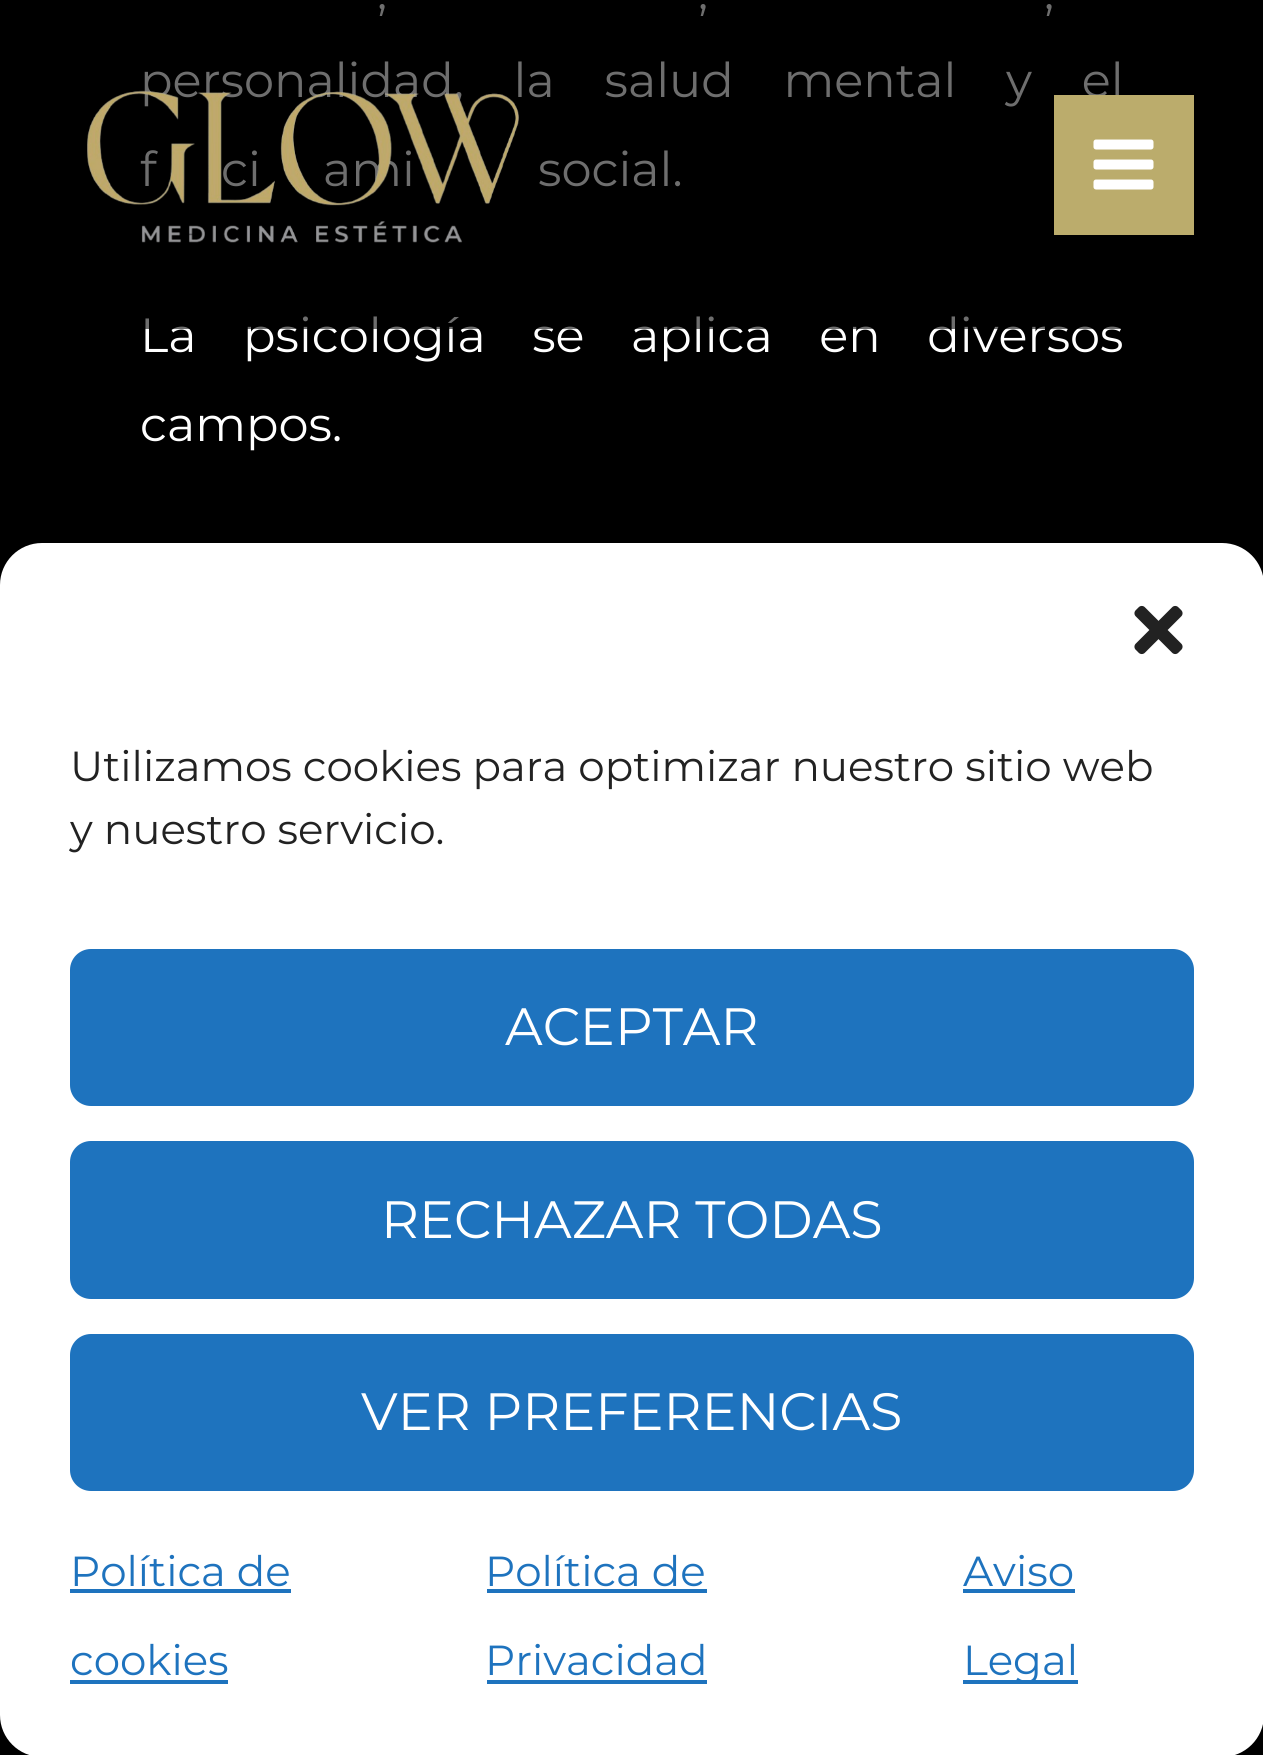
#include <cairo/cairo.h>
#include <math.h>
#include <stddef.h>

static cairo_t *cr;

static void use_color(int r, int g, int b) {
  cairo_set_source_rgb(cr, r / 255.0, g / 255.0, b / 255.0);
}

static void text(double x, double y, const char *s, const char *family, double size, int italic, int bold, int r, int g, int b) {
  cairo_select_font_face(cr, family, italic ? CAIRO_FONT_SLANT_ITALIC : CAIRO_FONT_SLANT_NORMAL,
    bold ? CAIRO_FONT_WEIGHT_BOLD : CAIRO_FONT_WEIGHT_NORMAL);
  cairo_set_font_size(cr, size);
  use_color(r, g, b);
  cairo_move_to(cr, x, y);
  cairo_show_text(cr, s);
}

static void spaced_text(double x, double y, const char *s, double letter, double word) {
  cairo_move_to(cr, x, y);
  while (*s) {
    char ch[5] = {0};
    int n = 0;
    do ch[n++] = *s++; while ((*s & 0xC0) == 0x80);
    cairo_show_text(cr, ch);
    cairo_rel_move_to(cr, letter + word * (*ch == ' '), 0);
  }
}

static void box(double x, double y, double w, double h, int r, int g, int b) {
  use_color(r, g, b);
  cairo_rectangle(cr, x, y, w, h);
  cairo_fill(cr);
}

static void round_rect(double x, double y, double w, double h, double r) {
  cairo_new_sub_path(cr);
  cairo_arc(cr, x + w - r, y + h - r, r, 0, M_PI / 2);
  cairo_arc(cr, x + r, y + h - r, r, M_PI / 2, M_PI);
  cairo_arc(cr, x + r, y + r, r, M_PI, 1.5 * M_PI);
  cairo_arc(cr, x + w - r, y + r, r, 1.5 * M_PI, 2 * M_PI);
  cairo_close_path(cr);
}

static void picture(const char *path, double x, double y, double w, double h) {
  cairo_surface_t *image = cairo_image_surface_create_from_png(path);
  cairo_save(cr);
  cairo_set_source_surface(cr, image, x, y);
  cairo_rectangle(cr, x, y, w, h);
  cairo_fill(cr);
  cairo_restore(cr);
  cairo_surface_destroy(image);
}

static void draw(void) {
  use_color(0, 0, 0);
  cairo_paint(cr);
  use_color(255, 255, 255);
  round_rect(0, 543, 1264, 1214, 42);
  cairo_fill(cr);
  picture("img_03.png", 1134, 605, 49, 50);
  use_color(30, 115, 190);
  round_rect(72, 951, 1120, 153, 19);
  cairo_fill_preserve(cr);
  cairo_set_line_width(cr, 4);
  cairo_stroke(cr);
  round_rect(72, 1143, 1120, 154, 19);
  cairo_fill_preserve(cr);
  cairo_stroke(cr);
  round_rect(72, 1336, 1120, 153, 19);
  cairo_fill_preserve(cr);
  cairo_stroke(cr);
  box(70, 1589, 221, 4, 30, 115, 190);
  box(70, 1680, 158, 4, 30, 115, 190);
  box(487, 1589, 220, 4, 30, 115, 190);
  box(487, 1680, 220, 4, 30, 115, 190);
  box(963, 1589, 112, 4, 30, 115, 190);
  box(963, 1680, 115, 4, 30, 115, 190);
  cairo_select_font_face(cr, "Montserrat", CAIRO_FONT_SLANT_NORMAL, CAIRO_FONT_WEIGHT_NORMAL);
  cairo_set_font_size(cr, 47.9);
  use_color(255, 255, 255);
  spaced_text(377, 9, ",", 0, 16);
  spaced_text(698, 9, ",", 0, 16);
  spaced_text(1044, 9, ",", 0, 16);
  spaced_text(140, 97, "personalidad, la salud mental y el", 0, 37.25);
  text(140, 186, "f", "Montserrat", 47.9, 0, 0, 255, 255, 255);
  text(221, 186, "ci", "Montserrat", 47.9, 0, 0, 255, 255, 255);
  text(323, 186, "ami", "Montserrat", 47.9, 0, 0, 255, 255, 255);
  text(538, 186, "social.", "Montserrat", 47.9, 0, 0, 255, 255, 255);
  spaced_text(140, 352, "La psicología se aplica en diversos", 0, 34);
  cairo_set_source_rgba(cr, 0, 0, 0, 0.57);
  cairo_rectangle(cr, 140, 4, 981, 325);
  cairo_fill(cr);
  box(1054, 95, 140, 140, 187, 172, 108);
  picture("img_02.png", 1093, 139, 61, 51);
  picture("img_01.png", 87, 90, 432, 153);
  text(140, 441, "campos.", "Montserrat", 47.9, 0, 0, 255, 255, 255);
  text(70, 781, "Utilizamos cookies para optimizar nuestro sitio web", "Montserrat", 42, 0, 0, 34, 34, 34);
  text(70, 844, "y nuestro servicio.", "Montserrat", 42, 0, 0, 34, 34, 34);
  text(505, 1045, "ACEPTAR", "Montserrat", 52.5, 0, 0, 255, 255, 255);
  text(381, 1238, "RECHAZAR TODAS", "Montserrat", 52.5, 0, 0, 255, 255, 255);
  text(361, 1430, "VER PREFERENCIAS", "Montserrat", 52.5, 0, 0, 255, 255, 255);
  text(70, 1586, "Política de", "Montserrat", 42, 0, 0, 30, 115, 190);
  text(70, 1675, "cookies", "Montserrat", 42, 0, 0, 30, 115, 190);
  text(485, 1586, "Política de", "Montserrat", 42, 0, 0, 30, 115, 190);
  text(485, 1675, "Privacidad", "Montserrat", 42, 0, 0, 30, 115, 190);
  text(963, 1586, "Aviso", "Montserrat", 42, 0, 0, 30, 115, 190);
  text(963, 1675, "Legal", "Montserrat", 42, 0, 0, 30, 115, 190);
}

int main(void) {
  cairo_surface_t *surface = cairo_image_surface_create(CAIRO_FORMAT_RGB24, 1263, 1755);
  cr = cairo_create(surface);
  cairo_font_options_t *options = cairo_font_options_create();
  cairo_font_options_set_hint_metrics(options, CAIRO_HINT_METRICS_OFF);
  cairo_font_options_set_hint_style(options, CAIRO_HINT_STYLE_NONE);
  cairo_set_font_options(cr, options);
  cairo_set_miter_limit(cr, 4);
  draw();
  cairo_surface_write_to_png(surface, "out.png");
  cairo_font_options_destroy(options);
  cairo_destroy(cr);
  cairo_surface_destroy(surface);
  return 0;
}
